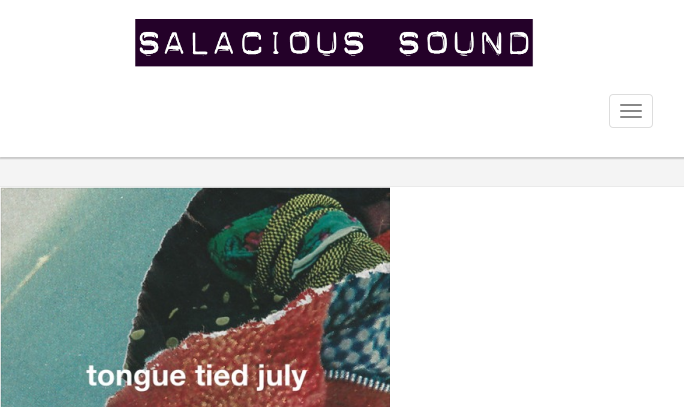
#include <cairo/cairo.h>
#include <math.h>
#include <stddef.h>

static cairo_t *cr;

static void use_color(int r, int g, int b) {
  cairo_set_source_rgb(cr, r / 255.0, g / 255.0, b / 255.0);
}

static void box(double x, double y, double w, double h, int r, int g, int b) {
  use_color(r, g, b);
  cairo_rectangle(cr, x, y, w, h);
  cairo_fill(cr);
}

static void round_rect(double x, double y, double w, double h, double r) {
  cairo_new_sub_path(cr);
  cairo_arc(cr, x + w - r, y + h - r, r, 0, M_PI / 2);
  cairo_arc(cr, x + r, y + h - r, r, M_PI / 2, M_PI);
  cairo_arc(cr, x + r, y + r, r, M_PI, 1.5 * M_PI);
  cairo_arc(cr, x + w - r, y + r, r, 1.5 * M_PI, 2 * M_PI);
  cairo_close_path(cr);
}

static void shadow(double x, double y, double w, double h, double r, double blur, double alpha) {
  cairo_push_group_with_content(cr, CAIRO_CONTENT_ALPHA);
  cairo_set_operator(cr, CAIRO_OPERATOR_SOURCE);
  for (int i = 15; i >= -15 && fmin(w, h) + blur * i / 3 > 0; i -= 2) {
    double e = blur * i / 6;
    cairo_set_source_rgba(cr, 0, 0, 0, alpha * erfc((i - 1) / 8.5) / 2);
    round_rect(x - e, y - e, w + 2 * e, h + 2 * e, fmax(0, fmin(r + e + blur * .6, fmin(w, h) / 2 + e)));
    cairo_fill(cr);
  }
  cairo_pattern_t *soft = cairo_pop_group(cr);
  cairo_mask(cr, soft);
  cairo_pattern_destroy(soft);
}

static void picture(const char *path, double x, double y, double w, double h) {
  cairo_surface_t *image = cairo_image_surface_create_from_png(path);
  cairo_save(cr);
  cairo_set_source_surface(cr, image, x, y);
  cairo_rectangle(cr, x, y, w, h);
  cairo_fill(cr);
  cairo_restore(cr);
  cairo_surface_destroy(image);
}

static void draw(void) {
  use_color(244, 244, 244);
  cairo_paint(cr);
  use_color(33, 33, 33);
  shadow(0, 0, 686, 159, 0, 0.5, 0.2);
  box(0, 0, 684, 157, 255, 255, 255);
  picture("img_01.png", 135, 19, 399, 48);
  round_rect(609.5, 94.5, 43, 33, 3.5);
  use_color(221, 221, 221);
  cairo_set_line_width(cr, 1);
  cairo_stroke(cr);
  use_color(136, 136, 136);
  round_rect(620, 104, 22, 2, 1);
  cairo_fill(cr);
  round_rect(620, 110, 22, 2, 1);
  cairo_fill(cr);
  round_rect(620, 116, 22, 2, 1);
  cairo_fill(cr);
  use_color(33, 33, 33);
  shadow(0, 187, 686, 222, 0, 0.5, 0.2);
  box(390, 187, 294, 220, 255, 255, 255);
  picture("img_02.png", 0, 187, 390, 220);
}

int main(void) {
  cairo_surface_t *surface = cairo_image_surface_create(CAIRO_FORMAT_RGB24, 684, 407);
  cr = cairo_create(surface);
  cairo_font_options_t *options = cairo_font_options_create();
  cairo_font_options_set_hint_metrics(options, CAIRO_HINT_METRICS_OFF);
  cairo_font_options_set_hint_style(options, CAIRO_HINT_STYLE_NONE);
  cairo_set_font_options(cr, options);
  cairo_set_miter_limit(cr, 4);
  draw();
  cairo_surface_write_to_png(surface, "out.png");
  cairo_font_options_destroy(options);
  cairo_destroy(cr);
  cairo_surface_destroy(surface);
  return 0;
}
